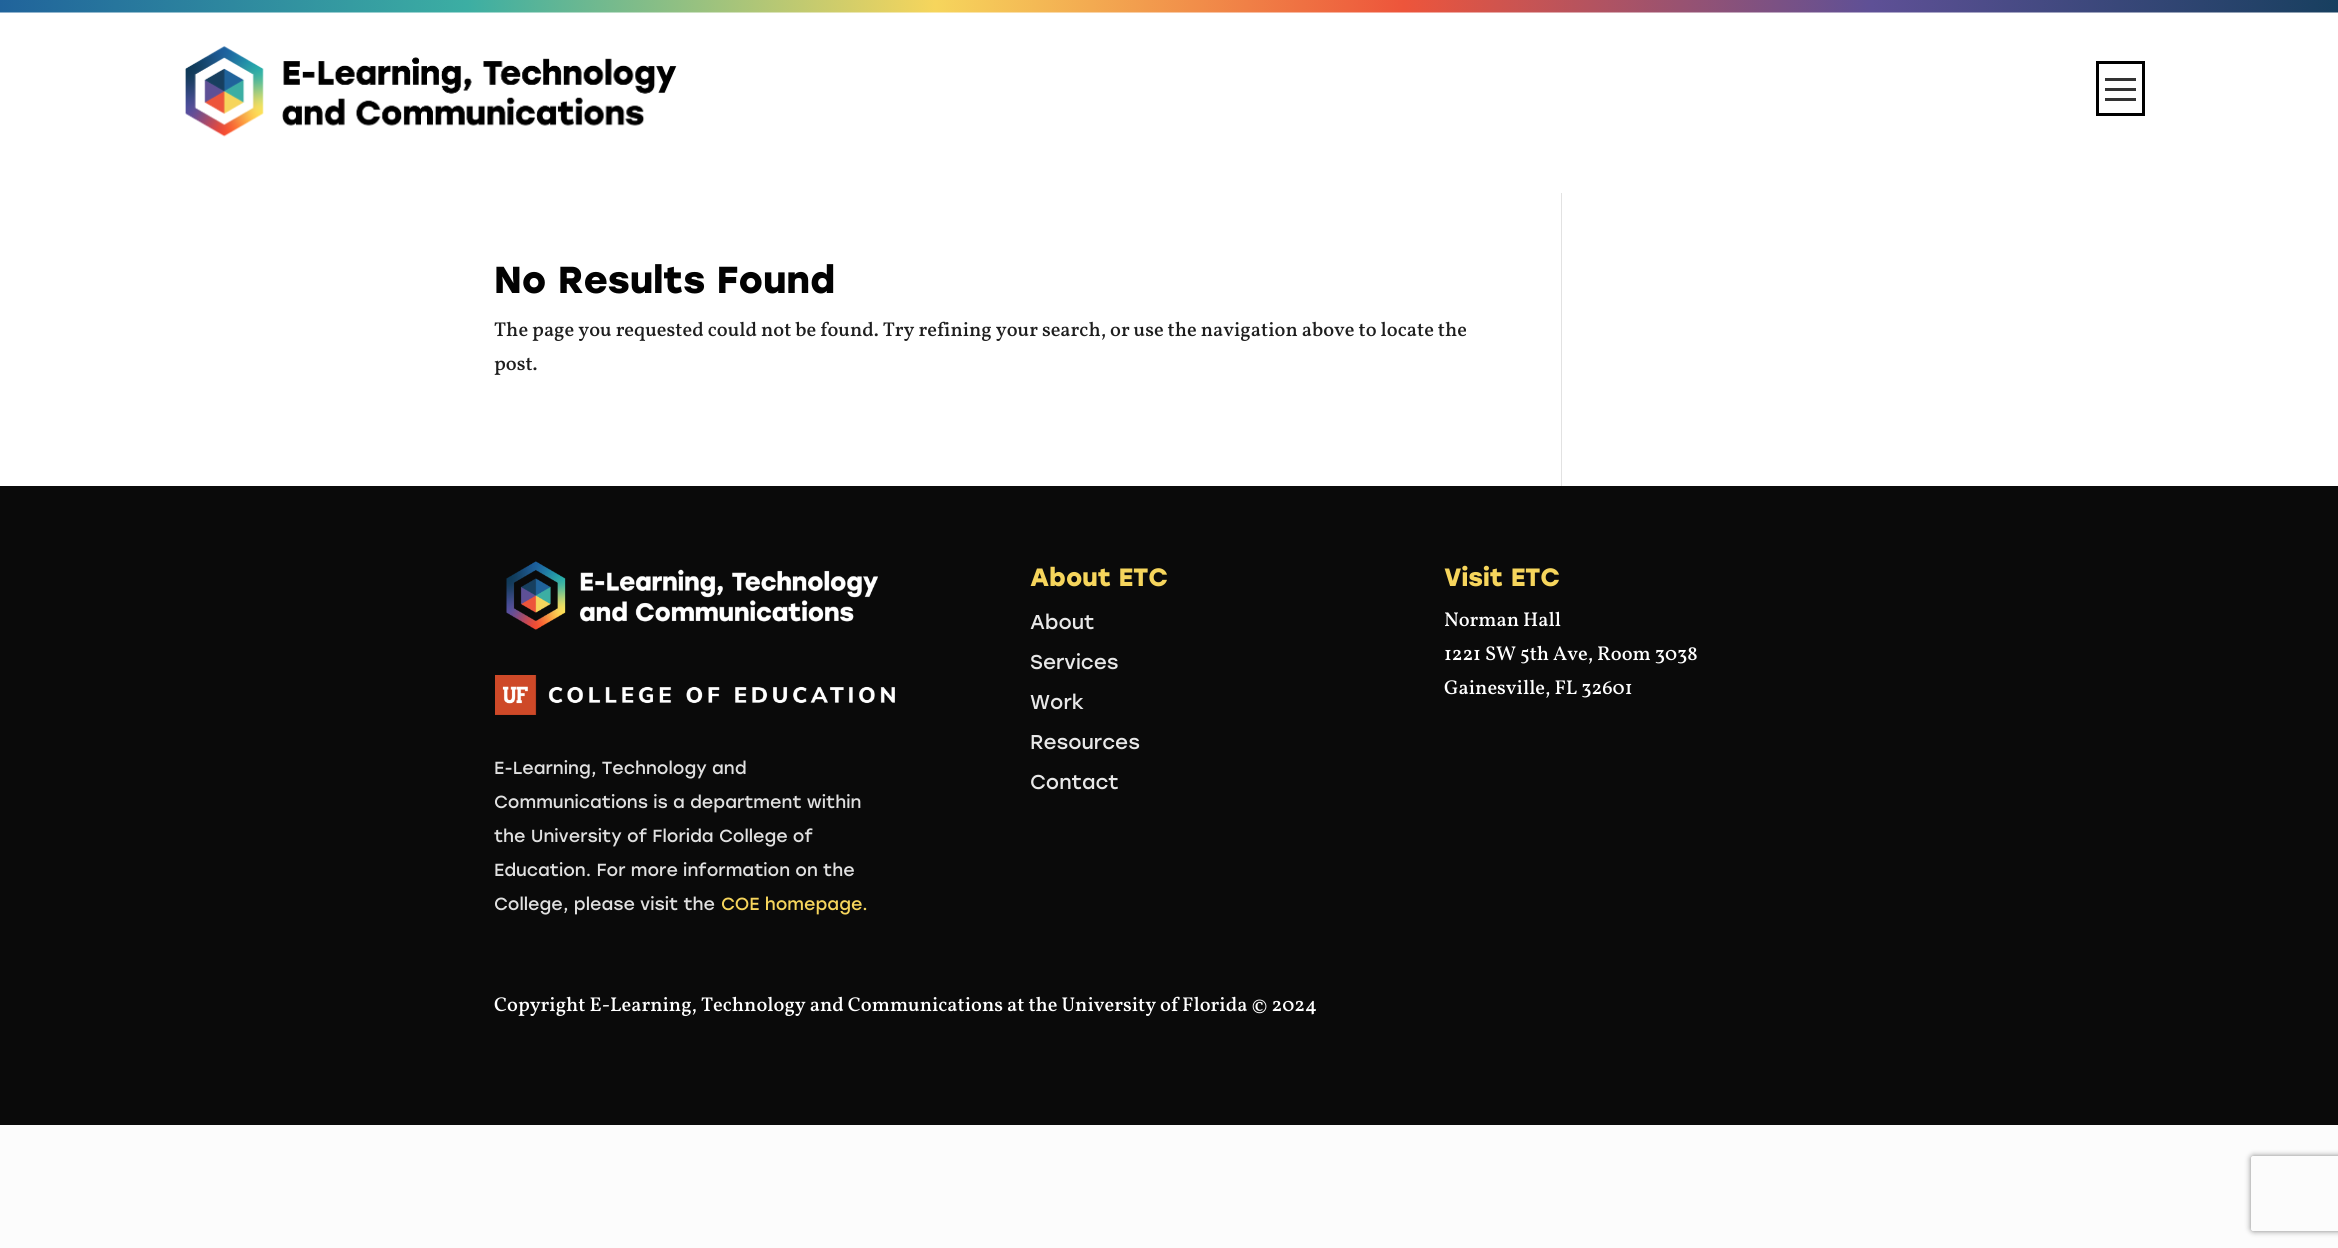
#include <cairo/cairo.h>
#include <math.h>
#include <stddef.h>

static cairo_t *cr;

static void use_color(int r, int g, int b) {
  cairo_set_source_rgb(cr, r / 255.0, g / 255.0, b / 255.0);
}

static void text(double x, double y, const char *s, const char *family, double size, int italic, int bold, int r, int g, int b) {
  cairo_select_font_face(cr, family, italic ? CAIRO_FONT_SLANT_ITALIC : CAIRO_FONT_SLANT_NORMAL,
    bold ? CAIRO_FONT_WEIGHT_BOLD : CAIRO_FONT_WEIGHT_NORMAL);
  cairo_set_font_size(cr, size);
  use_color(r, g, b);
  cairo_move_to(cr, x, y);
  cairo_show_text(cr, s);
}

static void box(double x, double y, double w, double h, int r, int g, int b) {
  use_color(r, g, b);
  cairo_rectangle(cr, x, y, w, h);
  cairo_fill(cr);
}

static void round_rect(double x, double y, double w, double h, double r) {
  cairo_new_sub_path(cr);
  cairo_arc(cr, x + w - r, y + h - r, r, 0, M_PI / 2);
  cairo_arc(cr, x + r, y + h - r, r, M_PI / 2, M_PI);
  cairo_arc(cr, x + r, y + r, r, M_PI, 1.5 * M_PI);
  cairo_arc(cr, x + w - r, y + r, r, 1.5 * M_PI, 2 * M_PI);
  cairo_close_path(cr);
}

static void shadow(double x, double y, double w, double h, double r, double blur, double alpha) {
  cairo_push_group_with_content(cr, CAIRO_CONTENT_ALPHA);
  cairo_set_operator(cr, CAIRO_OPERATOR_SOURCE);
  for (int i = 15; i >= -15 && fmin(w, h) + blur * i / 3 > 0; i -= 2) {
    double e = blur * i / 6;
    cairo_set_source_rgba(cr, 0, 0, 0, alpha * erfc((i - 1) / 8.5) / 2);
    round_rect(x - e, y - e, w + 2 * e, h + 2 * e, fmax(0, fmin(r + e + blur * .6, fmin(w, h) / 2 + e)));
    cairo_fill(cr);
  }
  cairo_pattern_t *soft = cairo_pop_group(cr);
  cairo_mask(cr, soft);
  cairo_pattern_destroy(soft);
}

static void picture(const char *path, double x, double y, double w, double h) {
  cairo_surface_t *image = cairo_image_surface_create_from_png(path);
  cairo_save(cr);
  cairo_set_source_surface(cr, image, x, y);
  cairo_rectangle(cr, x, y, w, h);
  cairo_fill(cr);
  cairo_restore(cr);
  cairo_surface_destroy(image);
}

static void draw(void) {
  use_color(252, 252, 252);
  cairo_paint(cr);
  box(0, 12, 2338, 474, 255, 255, 255);
  picture("img_01.png", 0, 0, 2338, 13);
  picture("img_02.png", 185, 46, 492, 91);
  cairo_rectangle(cr, 2097.5, 62.5, 46, 52);
  use_color(0, 0, 0);
  cairo_set_line_width(cr, 3);
  cairo_stroke(cr);
  box(2105, 78, 31, 3, 51, 51, 51);
  box(2105, 88, 31, 3, 51, 51, 51);
  box(2105, 98, 31, 3, 51, 51, 51);
  box(1561, 193, 1, 293, 226, 226, 226);
  box(0, 486, 2338, 639, 10, 10, 10);
  picture("img_03.png", 506, 561, 372, 69);
  picture("img_04.png", 495, 675, 400, 40);
  cairo_save(cr);
  cairo_set_fill_rule(cr, CAIRO_FILL_RULE_EVEN_ODD);
  cairo_new_path(cr);
  cairo_move_to(cr, 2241, 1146);
  cairo_line_to(cr, 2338, 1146);
  cairo_line_to(cr, 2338, 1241);
  cairo_line_to(cr, 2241, 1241);
  cairo_close_path(cr);
  cairo_move_to(cr, 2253.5, 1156);
  cairo_line_to(cr, 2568.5, 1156);
  cairo_curve_to(cr, 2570, 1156, 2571, 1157, 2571, 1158.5);
  cairo_line_to(cr, 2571, 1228.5);
  cairo_curve_to(cr, 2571, 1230, 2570, 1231, 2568.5, 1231);
  cairo_line_to(cr, 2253.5, 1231);
  cairo_curve_to(cr, 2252, 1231, 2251, 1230, 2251, 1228.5);
  cairo_line_to(cr, 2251, 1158.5);
  cairo_curve_to(cr, 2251, 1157, 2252, 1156, 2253.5, 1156);
  cairo_close_path(cr);
  cairo_clip(cr);
  use_color(128, 128, 128);
  shadow(2251, 1156, 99, 75, 2.5, 3, 1);
  cairo_restore(cr);
  text(494, 293, "No Results Found", "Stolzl", 37.5, 0, 1, 2, 2, 2);
  text(494, 336, "The page you requested could not be found. Try refining your search, or use the navigation above to locate the", "Vollkorn Medium", 20, 0, 0, 30, 30, 30);
  text(494, 370, "post.", "Vollkorn Medium", 20, 0, 0, 30, 30, 30);
  text(1030, 586, "About ETC", "Stolzl", 25, 0, 1, 246, 213, 92);
  text(1030, 629, "About", "Stolzl", 20, 0, 0, 232, 232, 232);
  text(1030, 669, "Services", "Stolzl", 20, 0, 0, 232, 232, 232);
  text(1030, 709, "Work", "Stolzl", 20, 0, 0, 232, 232, 232);
  text(1030, 749, "Resources", "Stolzl", 20, 0, 0, 232, 232, 232);
  text(1030, 789, "Contact", "Stolzl", 20, 0, 0, 232, 232, 232);
  text(1444, 586, "Visit ETC", "Stolzl", 25, 0, 1, 246, 213, 92);
  text(1444, 626, "Norman Hall", "Vollkorn Medium", 20, 0, 0, 255, 255, 255);
  text(1444, 660, "1221 SW 5th Ave, Room 3038", "Vollkorn Medium", 20, 0, 0, 255, 255, 255);
  text(1444, 694, "Gainesville, FL 32601", "Vollkorn Medium", 20, 0, 0, 255, 255, 255);
  text(494, 774, "E-Learning, Technology and", "Stolzl", 17.5, 0, 0, 224, 224, 224);
  text(494, 808, "Communications is a department within", "Stolzl", 17.5, 0, 0, 224, 224, 224);
  text(494, 842, "the University of Florida College of", "Stolzl", 17.5, 0, 0, 224, 224, 224);
  text(494, 876, "Education. For more information on the", "Stolzl", 17.5, 0, 0, 224, 224, 224);
  text(494, 910, "College, please visit the", "Stolzl", 17.5, 0, 0, 224, 224, 224);
  text(721, 910, "COE homepage.", "Stolzl", 17.5, 0, 0, 246, 213, 92);
  text(494, 1011, "Copyright E-Learning, Technology and Communications at the University of Florida © 2024", "Vollkorn Medium", 20, 0, 0, 255, 255, 255);
}

int main(void) {
  cairo_surface_t *surface = cairo_image_surface_create(CAIRO_FORMAT_RGB24, 2338, 1248);
  cr = cairo_create(surface);
  cairo_font_options_t *options = cairo_font_options_create();
  cairo_font_options_set_hint_metrics(options, CAIRO_HINT_METRICS_OFF);
  cairo_font_options_set_hint_style(options, CAIRO_HINT_STYLE_NONE);
  cairo_set_font_options(cr, options);
  cairo_set_miter_limit(cr, 4);
  draw();
  cairo_surface_write_to_png(surface, "out.png");
  cairo_font_options_destroy(options);
  cairo_destroy(cr);
  cairo_surface_destroy(surface);
  return 0;
}
